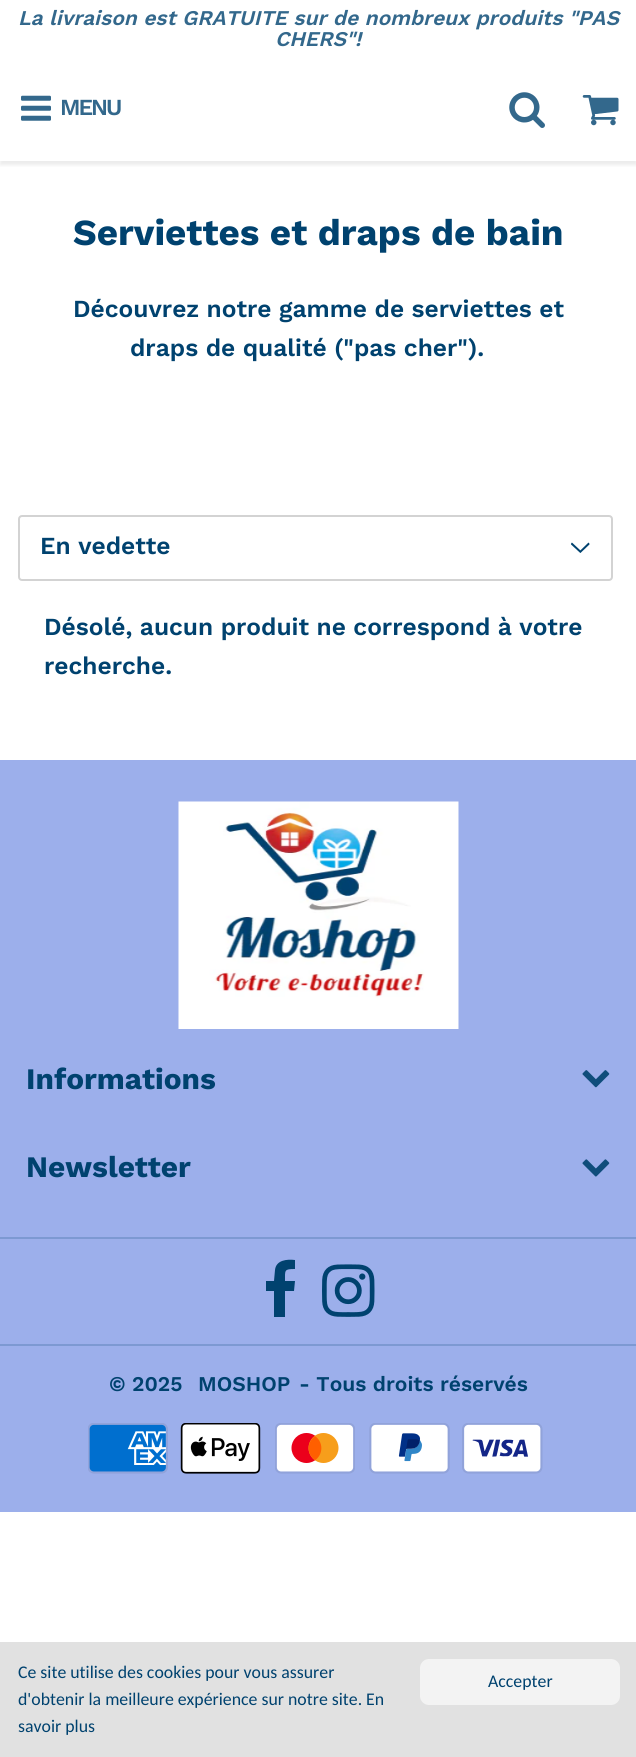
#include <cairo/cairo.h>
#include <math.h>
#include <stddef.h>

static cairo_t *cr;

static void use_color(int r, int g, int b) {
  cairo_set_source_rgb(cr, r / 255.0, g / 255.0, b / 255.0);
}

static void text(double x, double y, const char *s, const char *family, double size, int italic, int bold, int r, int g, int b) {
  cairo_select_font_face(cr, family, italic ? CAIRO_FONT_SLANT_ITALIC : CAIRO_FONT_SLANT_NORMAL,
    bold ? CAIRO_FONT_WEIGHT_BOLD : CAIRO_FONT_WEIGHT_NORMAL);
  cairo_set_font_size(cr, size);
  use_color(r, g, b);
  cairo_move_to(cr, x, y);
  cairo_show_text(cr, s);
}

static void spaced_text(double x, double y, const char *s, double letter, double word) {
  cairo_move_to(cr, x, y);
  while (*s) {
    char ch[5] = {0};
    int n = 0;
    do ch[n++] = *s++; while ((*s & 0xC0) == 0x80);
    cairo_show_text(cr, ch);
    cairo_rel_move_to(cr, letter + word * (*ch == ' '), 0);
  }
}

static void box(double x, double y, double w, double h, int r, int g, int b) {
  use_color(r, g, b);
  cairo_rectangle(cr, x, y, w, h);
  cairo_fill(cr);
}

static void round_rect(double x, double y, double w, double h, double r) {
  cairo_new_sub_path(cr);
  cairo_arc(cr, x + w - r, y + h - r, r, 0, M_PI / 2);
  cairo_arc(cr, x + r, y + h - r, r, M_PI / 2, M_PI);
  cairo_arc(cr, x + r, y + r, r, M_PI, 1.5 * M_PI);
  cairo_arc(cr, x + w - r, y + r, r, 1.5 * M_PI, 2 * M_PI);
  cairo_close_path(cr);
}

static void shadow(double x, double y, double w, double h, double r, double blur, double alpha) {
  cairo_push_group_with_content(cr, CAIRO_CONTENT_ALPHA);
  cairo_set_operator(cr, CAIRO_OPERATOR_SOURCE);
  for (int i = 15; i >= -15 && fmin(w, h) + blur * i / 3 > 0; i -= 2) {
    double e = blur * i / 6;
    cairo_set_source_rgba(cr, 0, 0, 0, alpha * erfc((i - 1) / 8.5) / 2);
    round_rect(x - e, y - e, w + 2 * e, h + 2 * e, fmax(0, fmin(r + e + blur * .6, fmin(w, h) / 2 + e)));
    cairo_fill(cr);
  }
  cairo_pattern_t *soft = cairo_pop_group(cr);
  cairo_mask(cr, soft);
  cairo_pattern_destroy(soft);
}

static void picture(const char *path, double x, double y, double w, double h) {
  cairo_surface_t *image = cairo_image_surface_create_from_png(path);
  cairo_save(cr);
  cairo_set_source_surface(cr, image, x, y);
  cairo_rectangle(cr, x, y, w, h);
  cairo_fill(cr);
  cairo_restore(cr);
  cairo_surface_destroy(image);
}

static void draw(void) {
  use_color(255, 255, 255);
  cairo_paint(cr);
  cairo_save(cr);
  cairo_rectangle(cr, 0, 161, 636, 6);
  cairo_clip(cr);
  use_color(51, 51, 51);
  shadow(0, 60, 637, 105, 0, 2, 0.1);
  cairo_restore(cr);
  picture("img_01.png", 21, 95, 30, 26);
  picture("img_02.png", 509, 92, 36, 36);
  picture("img_03.png", 582, 95, 37, 31);
  picture("img_04.png", 571, 542, 19, 11);
  round_rect(19, 516, 593, 64, 3);
  use_color(211, 211, 211);
  cairo_stroke(cr);
  box(0, 760, 636, 752, 156, 175, 235);
  picture("img_05.png", 178, 801, 281, 228);
  picture("img_06.png", 582, 1070, 28, 18);
  picture("img_07.png", 582, 1159, 28, 18);
  box(0, 1237, 636, 2, 125, 153, 210);
  use_color(0, 66, 111);
  cairo_new_path(cr);
  cairo_move_to(cr, 295, 1260);
  cairo_line_to(cr, 295, 1269);
  cairo_curve_to(cr, 284, 1269, 285, 1270, 285, 1281);
  cairo_line_to(cr, 295, 1281);
  cairo_line_to(cr, 294, 1291);
  cairo_line_to(cr, 285, 1291);
  cairo_line_to(cr, 285, 1317);
  cairo_line_to(cr, 274, 1317);
  cairo_line_to(cr, 274, 1291);
  cairo_line_to(cr, 266, 1291);
  cairo_line_to(cr, 266, 1281);
  cairo_line_to(cr, 274, 1281);
  cairo_line_to(cr, 275, 1270);
  cairo_curve_to(cr, 276, 1260, 287, 1259, 295, 1260);
  cairo_close_path(cr);
  cairo_fill(cr);
  picture("img_08.png", 322, 1264, 53, 53);
  box(0, 1344, 636, 2, 125, 153, 210);
  picture("img_09.png", 88, 1423, 80, 51);
  picture("img_10.png", 180, 1423, 81, 51);
  picture("img_11.png", 275, 1423, 80, 51);
  picture("img_12.png", 369, 1423, 81, 51);
  picture("img_13.png", 462, 1423, 81, 51);
  box(0, 1642, 636, 115, 225, 225, 225);
  use_color(243, 243, 243);
  round_rect(420, 1659, 200, 46, 9);
  cairo_fill(cr);
  text(18, 25, "La livraison est GRATUITE sur de nombreux produits \"PAS", "Work Sans SemiBold", 21, 1, 0, 51, 104, 140);
  text(275, 46, "CHERS\"!", "Work Sans SemiBold", 21, 1, 0, 51, 104, 140);
  cairo_select_font_face(cr, "Work Sans SemiBold", CAIRO_FONT_SLANT_NORMAL, CAIRO_FONT_WEIGHT_NORMAL);
  cairo_set_font_size(cr, 23);
  spaced_text(60, 115, "MENU", -2, 0);
  text(73, 245, "Serviettes et draps de bain", "Work Sans", 36.75, 0, 1, 0, 66, 111);
  text(73, 317, "Découvrez notre gamme de serviettes et", "Work Sans SemiBold", 24.5, 0, 0, 0, 66, 111);
  text(130, 356, "draps de qualité (\"pas cher\").", "Work Sans SemiBold", 24.5, 0, 0, 0, 66, 111);
  text(40, 554, "En vedette", "Work Sans SemiBold", 24.5, 0, 0, 0, 66, 111);
  text(44, 635, "Désolé, aucun produit ne correspond à votre", "Work Sans SemiBold", 24.5, 0, 0, 0, 66, 111);
  text(44, 674, "recherche.", "Work Sans SemiBold", 24.5, 0, 0, 0, 66, 111);
  text(26, 1089, "Informations", "Work Sans", 29.75, 0, 1, 0, 66, 111);
  text(26, 1177, "Newsletter", "Work Sans", 29.75, 0, 1, 0, 66, 111);
  text(109, 1391, "© 2025", "Work Sans SemiBold", 21, 0, 0, 0, 66, 111);
  text(198, 1391, "MOSHOP", "Work Sans SemiBold", 21, 0, 0, 0, 66, 111);
  text(299, 1391, "- Tous droits réservés", "Work Sans SemiBold", 21, 0, 0, 0, 66, 111);
  text(18, 1678, "Ce site utilise des cookies pour vous assurer", "Carlito", 17.8, 0, 0, 0, 66, 111);
  text(18, 1705, "d'obtenir la meilleure expérience sur notre site.", "Carlito", 17.8, 0, 0, 0, 66, 111);
  text(366, 1705, "En", "Carlito", 17.8, 0, 0, 0, 66, 111);
  text(18, 1732, "savoir plus", "Carlito", 17.8, 0, 0, 0, 66, 111);
  text(488, 1687, "Accepter", "Carlito", 17.8, 0, 0, 0, 66, 111);
}

int main(void) {
  cairo_surface_t *surface = cairo_image_surface_create(CAIRO_FORMAT_RGB24, 636, 1757);
  cr = cairo_create(surface);
  cairo_font_options_t *options = cairo_font_options_create();
  cairo_font_options_set_hint_metrics(options, CAIRO_HINT_METRICS_OFF);
  cairo_font_options_set_hint_style(options, CAIRO_HINT_STYLE_NONE);
  cairo_set_font_options(cr, options);
  cairo_set_miter_limit(cr, 4);
  draw();
  cairo_surface_write_to_png(surface, "out.png");
  cairo_font_options_destroy(options);
  cairo_destroy(cr);
  cairo_surface_destroy(surface);
  return 0;
}
